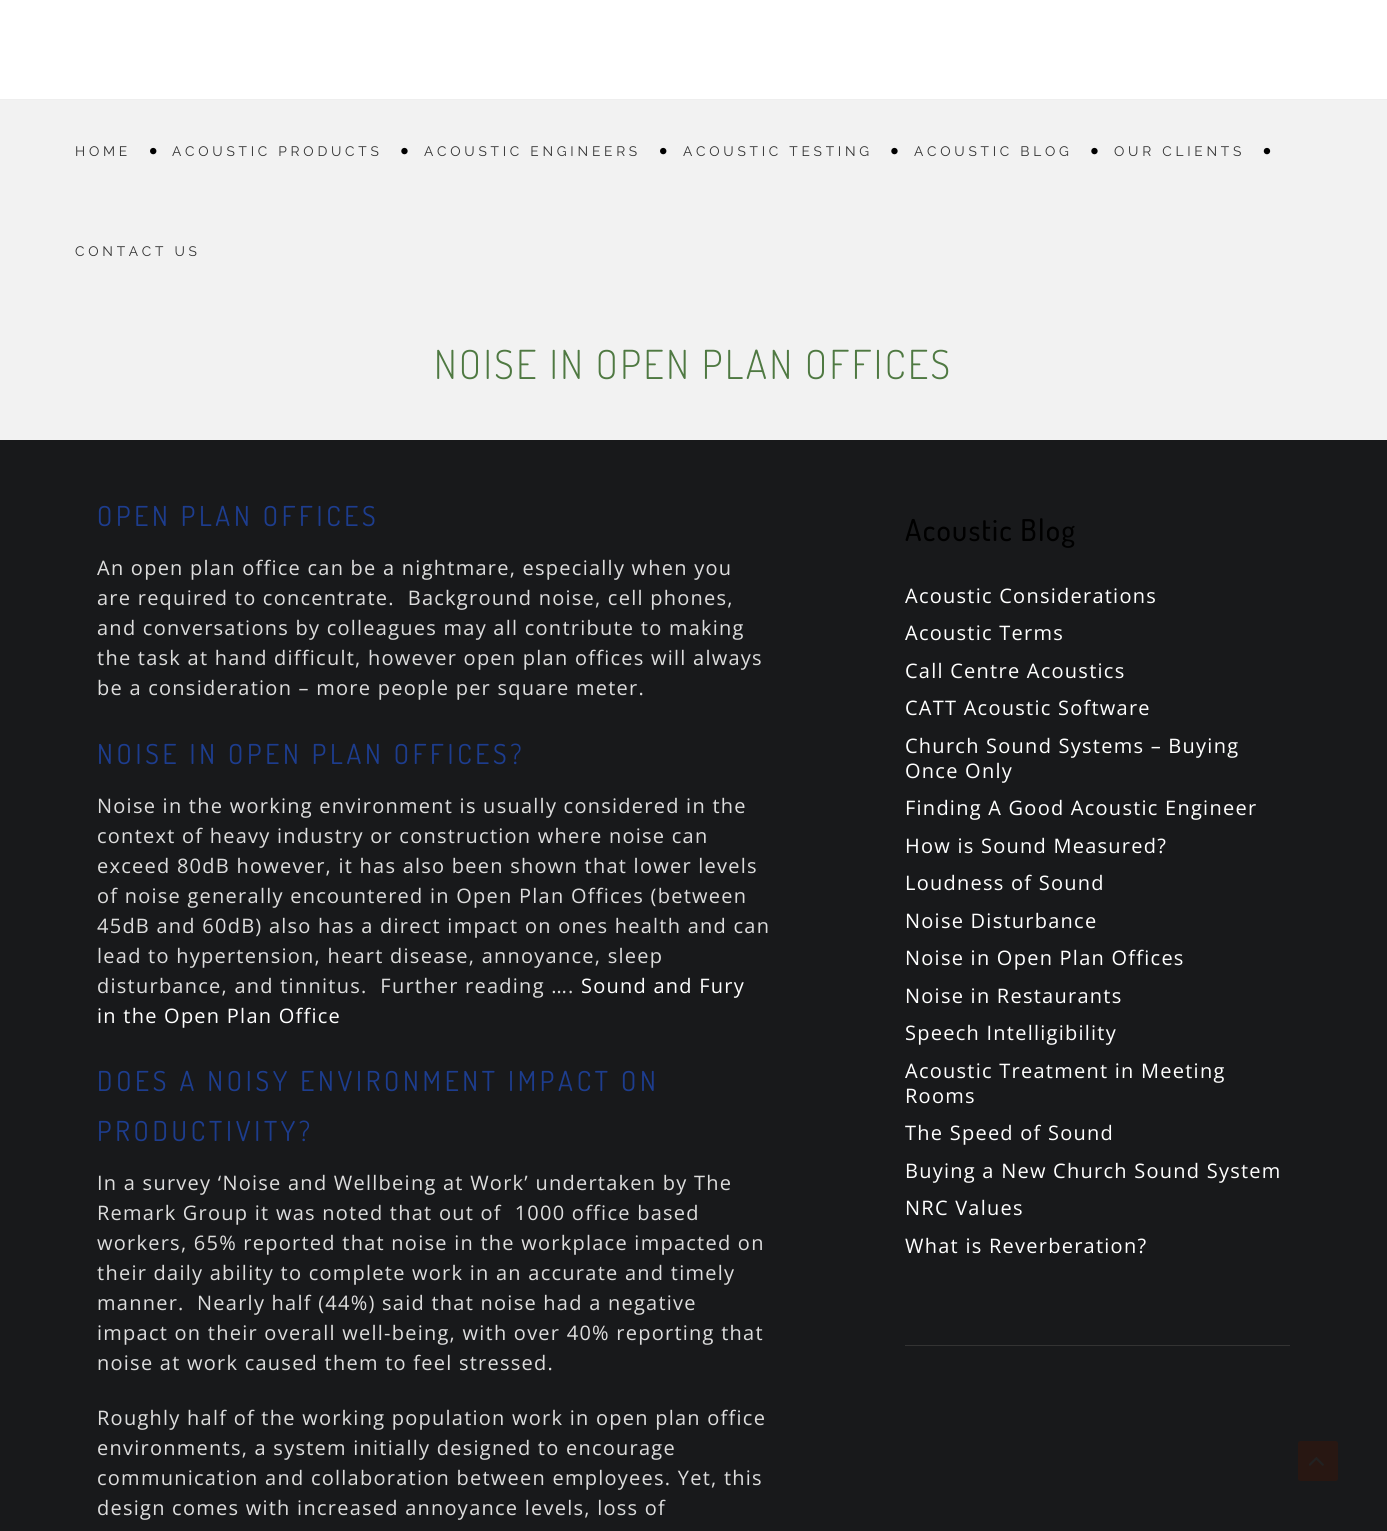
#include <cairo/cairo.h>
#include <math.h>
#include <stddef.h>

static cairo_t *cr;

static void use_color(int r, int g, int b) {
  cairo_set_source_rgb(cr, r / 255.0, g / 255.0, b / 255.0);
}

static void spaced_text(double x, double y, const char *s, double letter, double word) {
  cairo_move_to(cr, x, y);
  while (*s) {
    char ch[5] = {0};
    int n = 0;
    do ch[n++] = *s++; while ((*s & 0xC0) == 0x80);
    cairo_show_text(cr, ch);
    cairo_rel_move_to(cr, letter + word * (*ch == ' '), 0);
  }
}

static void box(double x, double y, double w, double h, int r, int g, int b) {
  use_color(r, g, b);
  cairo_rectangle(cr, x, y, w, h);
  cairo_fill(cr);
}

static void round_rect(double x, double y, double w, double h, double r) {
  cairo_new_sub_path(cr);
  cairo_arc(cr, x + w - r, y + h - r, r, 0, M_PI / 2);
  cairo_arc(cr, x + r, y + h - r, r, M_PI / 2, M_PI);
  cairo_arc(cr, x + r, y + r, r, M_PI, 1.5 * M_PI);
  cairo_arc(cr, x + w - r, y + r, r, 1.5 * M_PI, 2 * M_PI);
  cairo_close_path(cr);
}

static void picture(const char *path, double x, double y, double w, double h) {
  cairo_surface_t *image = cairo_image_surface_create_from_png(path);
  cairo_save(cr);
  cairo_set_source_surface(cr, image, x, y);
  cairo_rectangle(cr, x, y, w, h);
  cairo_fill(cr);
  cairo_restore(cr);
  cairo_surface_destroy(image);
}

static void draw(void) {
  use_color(255, 255, 255);
  cairo_paint(cr);
  box(0, 99, 1387, 1, 238, 238, 238);
  box(0, 100, 1387, 340, 242, 242, 242);
  picture("img_01.png", 150, 147, 7, 8);
  picture("img_02.png", 401, 147, 7, 8);
  picture("img_01.png", 660, 147, 7, 8);
  picture("img_02.png", 891, 147, 7, 8);
  picture("img_02.png", 1091, 147, 7, 8);
  picture("img_03.png", 1263, 147, 8, 8);
  box(0, 440, 1387, 1091, 24, 25, 27);
  box(905, 1345, 385, 1, 51, 51, 51);
  use_color(40, 23, 18);
  round_rect(1298, 1441, 40, 40, 2.5);
  cairo_fill(cr);
  picture("img_04.png", 1309, 1457, 15, 9);
  cairo_select_font_face(cr, "Raleway", CAIRO_FONT_SLANT_NORMAL, CAIRO_FONT_WEIGHT_NORMAL);
  cairo_set_font_size(cr, 13.75);
  use_color(51, 51, 51);
  spaced_text(75, 156, "HOME", 3.75, 0);
  spaced_text(172, 156, "ACOUSTIC PRODUCTS", 3.75, 0);
  spaced_text(424, 156, "ACOUSTIC ENGINEERS", 3.75, 0);
  spaced_text(683, 156, "ACOUSTIC TESTING", 3.75, 0);
  spaced_text(914, 156, "ACOUSTIC BLOG", 3.75, 0);
  spaced_text(1114, 156, "OUR CLIENTS", 3.75, 0);
  spaced_text(75, 256, "CONTACT US", 3.75, 0);
  cairo_select_font_face(cr, "Dosis Light", CAIRO_FONT_SLANT_NORMAL, CAIRO_FONT_WEIGHT_NORMAL);
  cairo_set_font_size(cr, 40);
  use_color(79, 121, 66);
  spaced_text(434, 379, "NOISE IN OPEN PLAN OFFICES", 2.5, 0);
  cairo_select_font_face(cr, "Dosis", CAIRO_FONT_SLANT_NORMAL, CAIRO_FONT_WEIGHT_NORMAL);
  cairo_set_font_size(cr, 27.5);
  use_color(29, 61, 143);
  spaced_text(97, 526, "OPEN PLAN OFFICES", 3.75, 0);
  cairo_select_font_face(cr, "Open Sans", CAIRO_FONT_SLANT_NORMAL, CAIRO_FONT_WEIGHT_NORMAL);
  cairo_set_font_size(cr, 20);
  use_color(221, 221, 221);
  spaced_text(97, 575, "An open plan office can be a nightmare, especially when you", 1.25, 0);
  spaced_text(97, 605, "are required to concentrate.  Background noise, cell phones,", 1.25, 0);
  spaced_text(97, 635, "and conversations by colleagues may all contribute to making", 1.25, 0);
  spaced_text(97, 665, "the task at hand difficult, however open plan offices will always", 1.25, 0);
  spaced_text(97, 695, "be a consideration – more people per square meter.", 1.25, 0);
  cairo_select_font_face(cr, "Dosis", CAIRO_FONT_SLANT_NORMAL, CAIRO_FONT_WEIGHT_NORMAL);
  cairo_set_font_size(cr, 27.5);
  use_color(29, 61, 143);
  spaced_text(97, 764, "NOISE IN OPEN PLAN OFFICES?", 3.75, 0);
  cairo_select_font_face(cr, "Open Sans", CAIRO_FONT_SLANT_NORMAL, CAIRO_FONT_WEIGHT_NORMAL);
  cairo_set_font_size(cr, 20);
  use_color(221, 221, 221);
  spaced_text(97, 813, "Noise in the working environment is usually considered in the", 1.25, 0);
  spaced_text(97, 843, "context of heavy industry or construction where noise can", 1.25, 0);
  spaced_text(97, 873, "exceed 80dB however, it has also been shown that lower levels", 1.25, 0);
  spaced_text(97, 903, "of noise generally encountered in Open Plan Offices (between", 1.25, 0);
  spaced_text(97, 933, "45dB and 60dB) also has a direct impact on ones health and can", 1.25, 0);
  spaced_text(97, 963, "lead to hypertension, heart disease, annoyance, sleep", 1.25, 0);
  spaced_text(97, 993, "disturbance, and tinnitus.  Further reading ….", 1.25, 0);
  use_color(255, 255, 255);
  spaced_text(581, 993, "Sound and Fury", 1.25, 0);
  spaced_text(97, 1023, "in the Open Plan Office", 1.25, 0);
  cairo_select_font_face(cr, "Dosis", CAIRO_FONT_SLANT_NORMAL, CAIRO_FONT_WEIGHT_NORMAL);
  cairo_set_font_size(cr, 27.5);
  use_color(29, 61, 143);
  spaced_text(97, 1091, "DOES A NOISY ENVIRONMENT IMPACT ON", 3.75, 0);
  spaced_text(97, 1141, "PRODUCTIVITY?", 3.75, 0);
  cairo_select_font_face(cr, "Open Sans", CAIRO_FONT_SLANT_NORMAL, CAIRO_FONT_WEIGHT_NORMAL);
  cairo_set_font_size(cr, 20);
  use_color(221, 221, 221);
  spaced_text(97, 1190, "In a survey ‘Noise and Wellbeing at Work’ undertaken by The", 1.25, 0);
  spaced_text(97, 1220, "Remark Group it was noted that out of  1000 office based", 1.25, 0);
  spaced_text(97, 1250, "workers, 65% reported that noise in the workplace impacted on", 1.25, 0);
  spaced_text(97, 1280, "their daily ability to complete work in an accurate and timely", 1.25, 0);
  spaced_text(97, 1310, "manner.", 1.25, 0);
  spaced_text(197, 1310, "Nearly half (44%) said that noise had a negative", 1.25, 0);
  spaced_text(97, 1340, "impact on their overall well-being, with over 40% reporting that", 1.25, 0);
  spaced_text(97, 1370, "noise at work caused them to feel stressed.", 1.25, 0);
  spaced_text(97, 1425, "Roughly half of the working population work in open plan office", 1.25, 0);
  spaced_text(97, 1455, "environments, a system initially designed to encourage", 1.25, 0);
  spaced_text(97, 1485, "communication and collaboration between employees. Yet, this", 1.25, 0);
  spaced_text(97, 1515, "design comes with increased annoyance levels, loss of", 1.25, 0);
  cairo_select_font_face(cr, "Dosis Medium", CAIRO_FONT_SLANT_NORMAL, CAIRO_FONT_WEIGHT_NORMAL);
  cairo_set_font_size(cr, 30);
  use_color(0, 0, 0);
  spaced_text(905, 541, "Acoustic Blog", 1.25, 0);
  cairo_select_font_face(cr, "Open Sans", CAIRO_FONT_SLANT_NORMAL, CAIRO_FONT_WEIGHT_NORMAL);
  cairo_set_font_size(cr, 20);
  use_color(255, 255, 255);
  spaced_text(905, 603, "Acoustic Considerations", 1.25, 0);
  spaced_text(905, 640, "Acoustic Terms", 1.25, 0);
  spaced_text(905, 678, "Call Centre Acoustics", 1.25, 0);
  spaced_text(905, 715, "CATT Acoustic Software", 1.25, 0);
  spaced_text(905, 753, "Church Sound Systems – Buying", 1.25, 0);
  spaced_text(905, 778, "Once Only", 1.25, 0);
  spaced_text(905, 815, "Finding A Good Acoustic Engineer", 1.25, 0);
  spaced_text(905, 853, "How is Sound Measured?", 1.25, 0);
  spaced_text(905, 890, "Loudness of Sound", 1.25, 0);
  spaced_text(905, 928, "Noise Disturbance", 1.25, 0);
  spaced_text(905, 965, "Noise in Open Plan Offices", 1.25, 0);
  spaced_text(905, 1003, "Noise in Restaurants", 1.25, 0);
  spaced_text(905, 1040, "Speech Intelligibility", 1.25, 0);
  spaced_text(905, 1078, "Acoustic Treatment in Meeting", 1.25, 0);
  spaced_text(905, 1103, "Rooms", 1.25, 0);
  spaced_text(905, 1140, "The Speed of Sound", 1.25, 0);
  spaced_text(905, 1178, "Buying a New Church Sound System", 1.25, 0);
  spaced_text(905, 1215, "NRC Values", 1.25, 0);
  spaced_text(905, 1253, "What is Reverberation?", 1.25, 0);
}

int main(void) {
  cairo_surface_t *surface = cairo_image_surface_create(CAIRO_FORMAT_RGB24, 1387, 1531);
  cr = cairo_create(surface);
  cairo_font_options_t *options = cairo_font_options_create();
  cairo_font_options_set_hint_metrics(options, CAIRO_HINT_METRICS_OFF);
  cairo_font_options_set_hint_style(options, CAIRO_HINT_STYLE_NONE);
  cairo_set_font_options(cr, options);
  cairo_set_miter_limit(cr, 4);
  draw();
  cairo_surface_write_to_png(surface, "out.png");
  cairo_font_options_destroy(options);
  cairo_destroy(cr);
  cairo_surface_destroy(surface);
  return 0;
}
